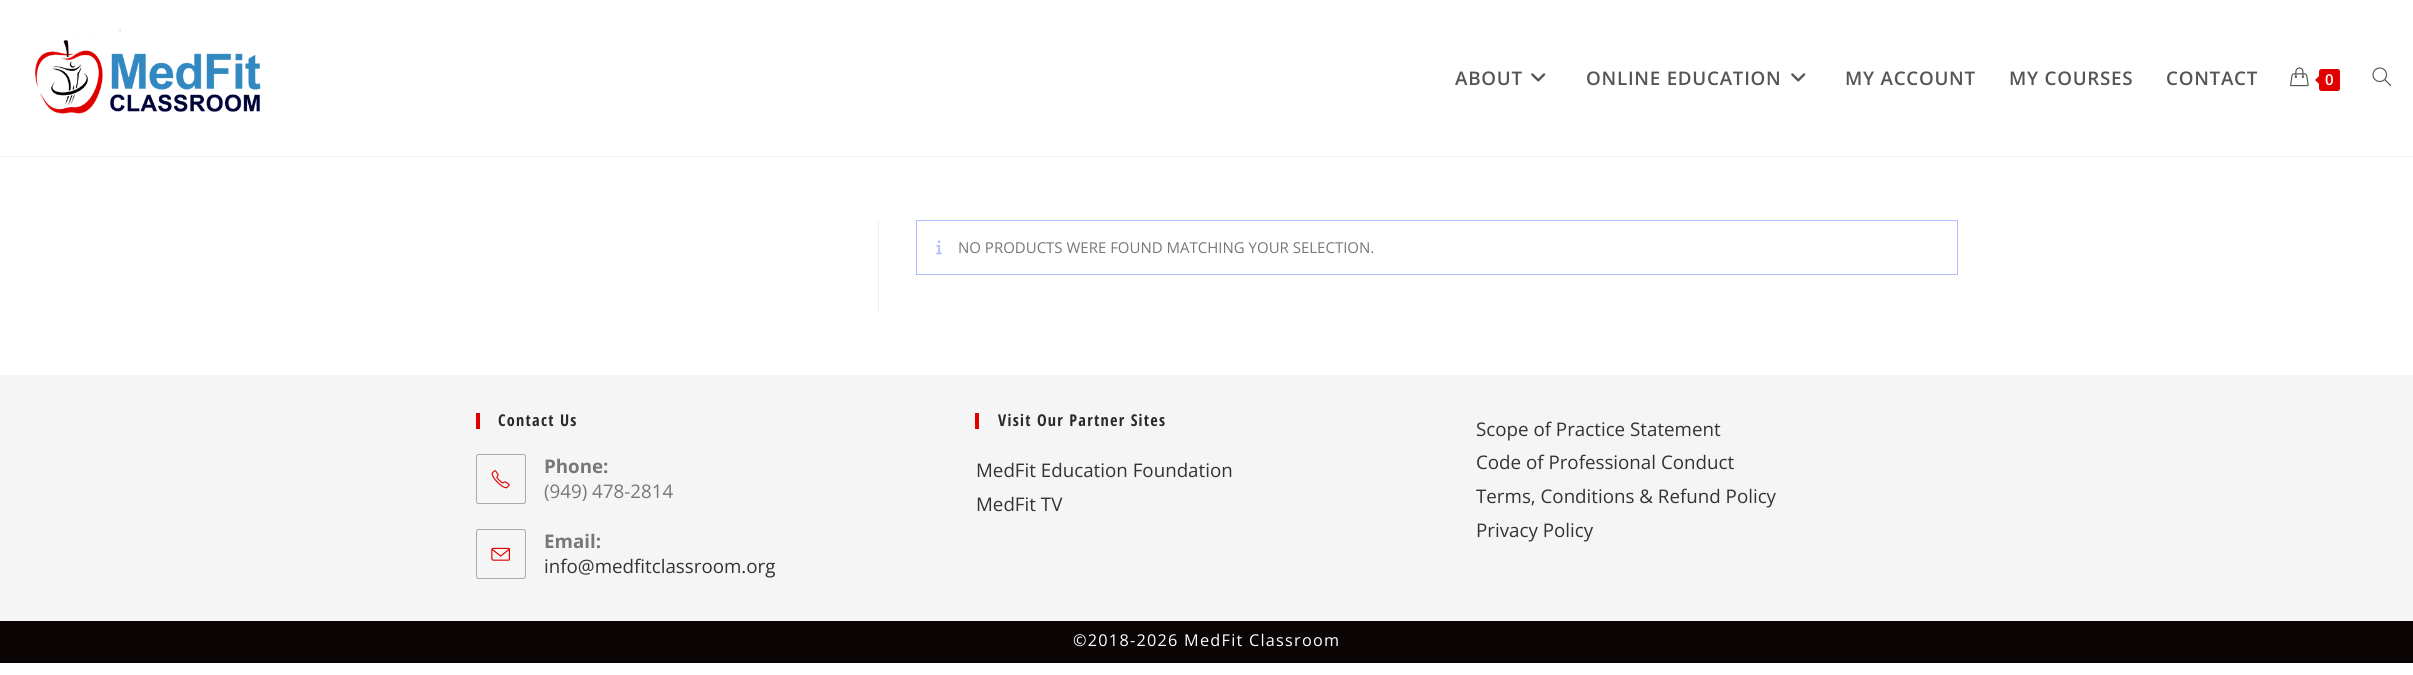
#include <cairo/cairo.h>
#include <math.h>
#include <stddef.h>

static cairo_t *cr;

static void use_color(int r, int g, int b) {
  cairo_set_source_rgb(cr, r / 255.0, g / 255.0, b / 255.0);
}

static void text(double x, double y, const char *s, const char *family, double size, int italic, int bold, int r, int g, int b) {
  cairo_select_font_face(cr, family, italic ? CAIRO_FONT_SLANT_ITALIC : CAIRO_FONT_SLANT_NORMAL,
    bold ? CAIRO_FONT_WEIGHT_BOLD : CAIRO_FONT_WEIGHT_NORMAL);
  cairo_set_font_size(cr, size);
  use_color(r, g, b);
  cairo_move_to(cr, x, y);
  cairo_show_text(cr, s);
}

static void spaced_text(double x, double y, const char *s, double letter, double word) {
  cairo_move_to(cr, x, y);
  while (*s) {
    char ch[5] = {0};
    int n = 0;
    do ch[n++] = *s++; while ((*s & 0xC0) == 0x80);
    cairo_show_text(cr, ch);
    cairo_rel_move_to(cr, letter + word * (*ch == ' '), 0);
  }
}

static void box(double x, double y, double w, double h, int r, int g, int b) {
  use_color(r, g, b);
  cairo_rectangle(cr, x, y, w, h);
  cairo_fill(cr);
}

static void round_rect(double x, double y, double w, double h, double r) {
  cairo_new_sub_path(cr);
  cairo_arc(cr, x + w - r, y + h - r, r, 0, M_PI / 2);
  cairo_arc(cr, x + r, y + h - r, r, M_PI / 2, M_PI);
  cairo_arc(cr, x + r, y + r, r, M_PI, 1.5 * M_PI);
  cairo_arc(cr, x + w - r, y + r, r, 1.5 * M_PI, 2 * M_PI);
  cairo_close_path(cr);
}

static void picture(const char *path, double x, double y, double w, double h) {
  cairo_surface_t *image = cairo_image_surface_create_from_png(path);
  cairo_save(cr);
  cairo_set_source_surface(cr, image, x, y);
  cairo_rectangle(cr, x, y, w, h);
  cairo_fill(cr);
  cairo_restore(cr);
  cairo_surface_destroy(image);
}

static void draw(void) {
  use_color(255, 255, 255);
  cairo_paint(cr);
  box(0, 156, 2413, 1, 241, 241, 241);
  picture("img_01.png", 35, 28, 226, 86);
  picture("img_02.png", 1531, 73, 15, 9);
  picture("img_02.png", 1791, 73, 15, 9);
  picture("img_03.png", 2290, 67, 19, 20);
  use_color(225, 0, 0);
  round_rect(2319, 69, 21, 22, 2.5);
  cairo_fill(cr);
  cairo_new_path(cr);
  cairo_move_to(cr, 2321, 74);
  cairo_line_to(cr, 2321, 86);
  cairo_line_to(cr, 2315, 80);
  cairo_close_path(cr);
  cairo_fill(cr);
  picture("img_04.png", 2372, 67, 20, 20);
  box(878, 220, 1, 93, 241, 241, 241);
  cairo_rectangle(cr, 916.5, 220.5, 1041, 54);
  use_color(177, 190, 253);
  cairo_set_line_width(cr, 1);
  cairo_stroke(cr);
  picture("img_05.png", 936, 240, 6, 15);
  box(0, 375, 2413, 246, 245, 245, 245);
  box(476, 413, 4, 16, 225, 0, 0);
  round_rect(476.5, 454.5, 49, 49, 2);
  use_color(170, 170, 170);
  cairo_stroke(cr);
  picture("img_06.png", 491, 470, 19, 19);
  round_rect(476.5, 529.5, 49, 49, 2);
  cairo_stroke(cr);
  picture("img_07.png", 491, 547, 19, 14);
  box(975, 413, 4, 16, 225, 0, 0);
  box(0, 621, 2413, 42, 10, 4, 5);
  cairo_select_font_face(cr, "Open Sans SemiBold", CAIRO_FONT_SLANT_NORMAL, CAIRO_FONT_WEIGHT_NORMAL);
  cairo_set_font_size(cr, 18.75);
  use_color(85, 85, 85);
  spaced_text(1455, 85, "ABOUT", 0.75, 0);
  spaced_text(1586, 85, "ONLINE EDUCATION", 0.75, 0);
  spaced_text(1845, 85, "MY ACCOUNT", 0.75, 0);
  spaced_text(2009, 85, "MY COURSES", 0.75, 0);
  spaced_text(2166, 85, "CONTACT", 0.75, 0);
  text(2325, 85, "0", "Open Sans SemiBold", 15, 0, 0, 255, 255, 255);
  text(958, 253, "NO PRODUCTS WERE FOUND MATCHING YOUR SELECTION.", "Open Sans", 15, 0, 0, 119, 119, 119);
  cairo_select_font_face(cr, "Open Sans Condensed", CAIRO_FONT_SLANT_NORMAL, CAIRO_FONT_WEIGHT_BOLD);
  cairo_set_font_size(cr, 16.25);
  use_color(41, 41, 41);
  spaced_text(498, 426, "Contact Us", 1.25, 0);
  text(544, 473, "Phone:", "Open Sans", 18.75, 0, 1, 119, 119, 119);
  text(544, 498, "(949) 478-2814", "Open Sans", 18.75, 0, 0, 119, 119, 119);
  text(544, 548, "Email:", "Open Sans", 18.75, 0, 1, 119, 119, 119);
  text(544, 573, "info@medfitclassroom.org", "Open Sans", 18.75, 0, 0, 51, 51, 51);
  cairo_select_font_face(cr, "Open Sans Condensed", CAIRO_FONT_SLANT_NORMAL, CAIRO_FONT_WEIGHT_BOLD);
  cairo_set_font_size(cr, 16.25);
  use_color(41, 41, 41);
  spaced_text(998, 426, "Visit Our Partner Sites", 1.25, 0);
  text(976, 477, "MedFit Education Foundation", "Open Sans", 18.75, 0, 0, 51, 51, 51);
  text(976, 511, "MedFit TV", "Open Sans", 18.75, 0, 0, 51, 51, 51);
  text(1476, 436, "Scope of Practice Statement", "Open Sans", 18.75, 0, 0, 51, 51, 51);
  text(1476, 469, "Code of Professional Conduct", "Open Sans", 18.75, 0, 0, 51, 51, 51);
  text(1476, 503, "Terms, Conditions & Refund Policy", "Open Sans", 18.75, 0, 0, 51, 51, 51);
  text(1476, 537, "Privacy Policy", "Open Sans", 18.75, 0, 0, 51, 51, 51);
  cairo_set_font_size(cr, 16.25);
  use_color(255, 255, 255);
  spaced_text(1073, 646, "©2018-2026 MedFit Classroom", 1.25, 0);
}

int main(void) {
  cairo_surface_t *surface = cairo_image_surface_create(CAIRO_FORMAT_RGB24, 2413, 675);
  cr = cairo_create(surface);
  cairo_font_options_t *options = cairo_font_options_create();
  cairo_font_options_set_hint_metrics(options, CAIRO_HINT_METRICS_OFF);
  cairo_font_options_set_hint_style(options, CAIRO_HINT_STYLE_NONE);
  cairo_set_font_options(cr, options);
  cairo_set_miter_limit(cr, 4);
  draw();
  cairo_surface_write_to_png(surface, "out.png");
  cairo_font_options_destroy(options);
  cairo_destroy(cr);
  cairo_surface_destroy(surface);
  return 0;
}
